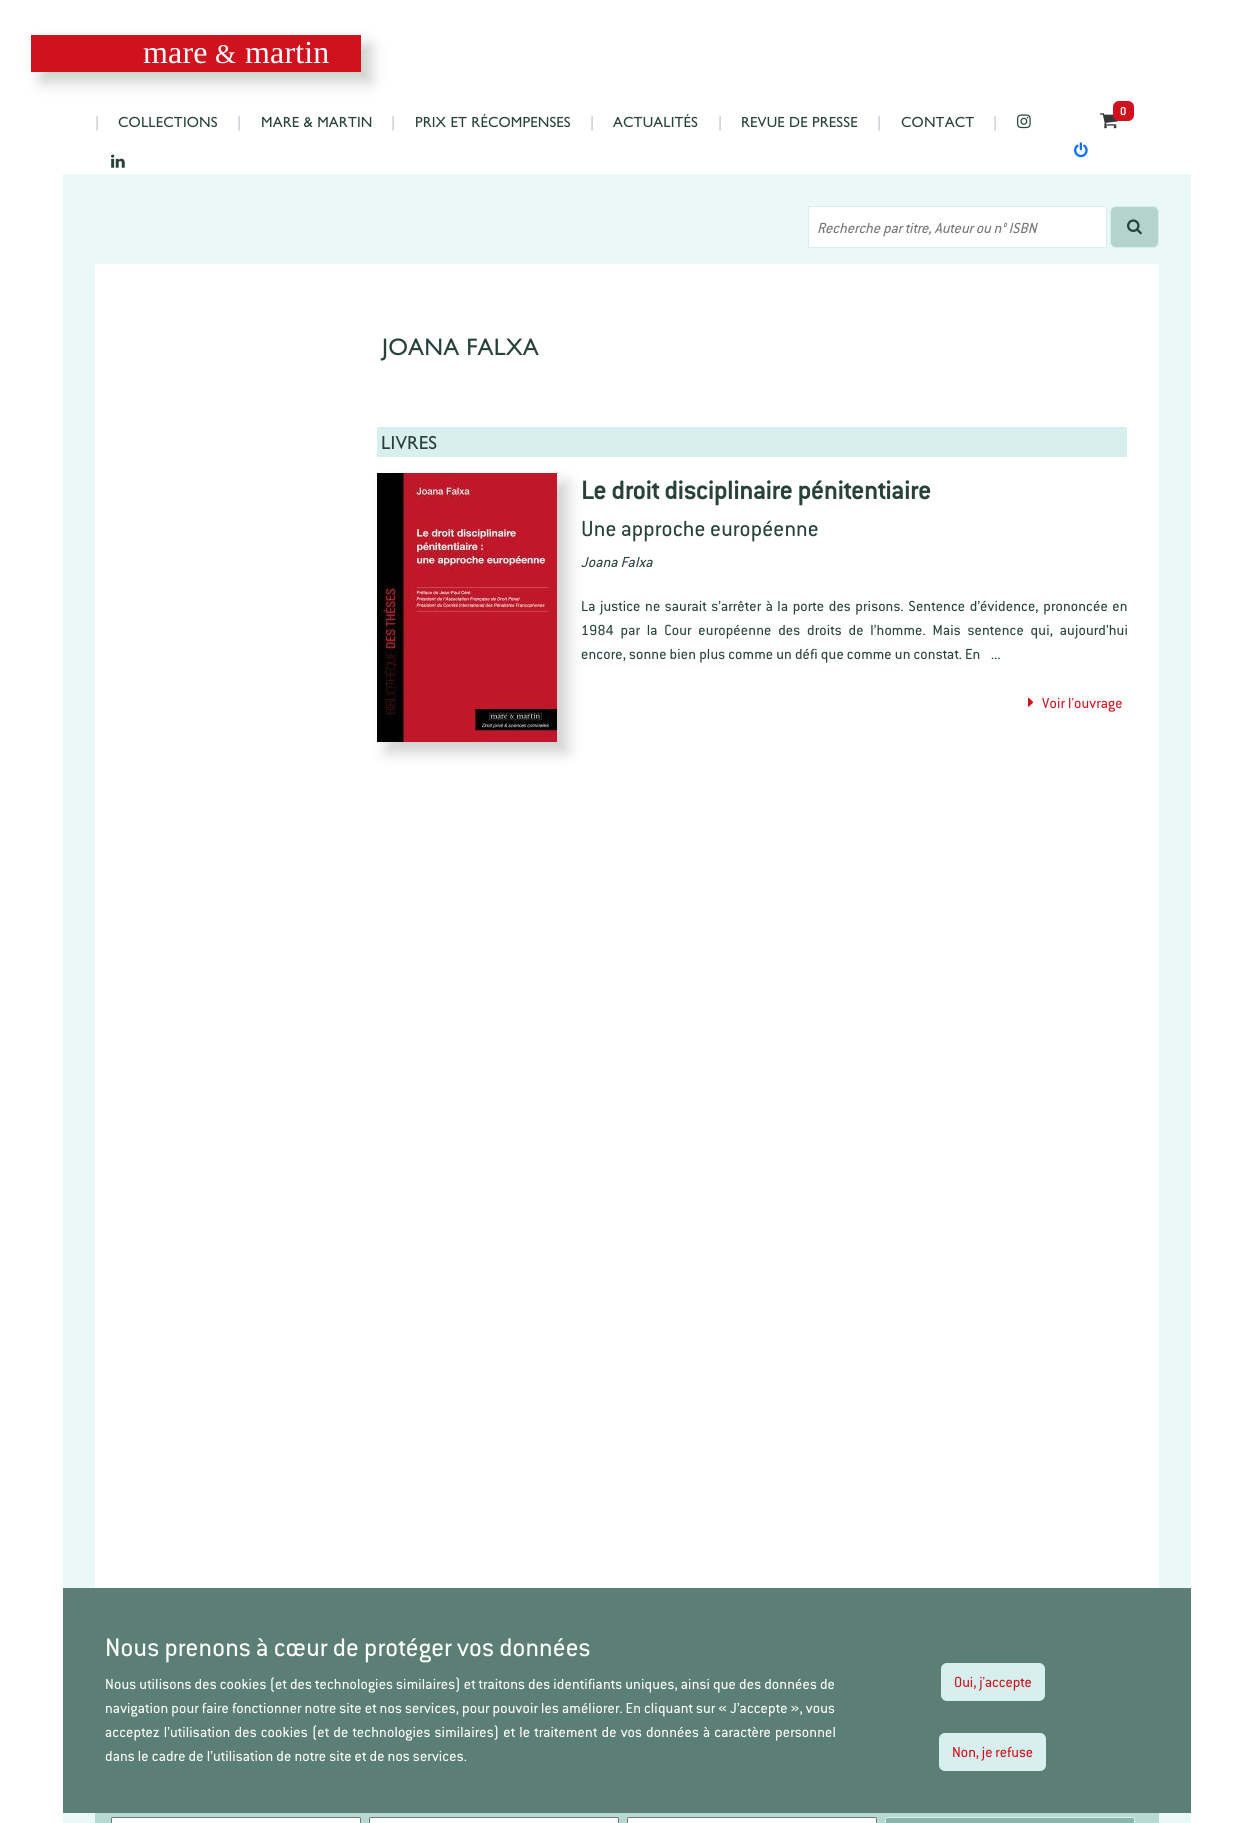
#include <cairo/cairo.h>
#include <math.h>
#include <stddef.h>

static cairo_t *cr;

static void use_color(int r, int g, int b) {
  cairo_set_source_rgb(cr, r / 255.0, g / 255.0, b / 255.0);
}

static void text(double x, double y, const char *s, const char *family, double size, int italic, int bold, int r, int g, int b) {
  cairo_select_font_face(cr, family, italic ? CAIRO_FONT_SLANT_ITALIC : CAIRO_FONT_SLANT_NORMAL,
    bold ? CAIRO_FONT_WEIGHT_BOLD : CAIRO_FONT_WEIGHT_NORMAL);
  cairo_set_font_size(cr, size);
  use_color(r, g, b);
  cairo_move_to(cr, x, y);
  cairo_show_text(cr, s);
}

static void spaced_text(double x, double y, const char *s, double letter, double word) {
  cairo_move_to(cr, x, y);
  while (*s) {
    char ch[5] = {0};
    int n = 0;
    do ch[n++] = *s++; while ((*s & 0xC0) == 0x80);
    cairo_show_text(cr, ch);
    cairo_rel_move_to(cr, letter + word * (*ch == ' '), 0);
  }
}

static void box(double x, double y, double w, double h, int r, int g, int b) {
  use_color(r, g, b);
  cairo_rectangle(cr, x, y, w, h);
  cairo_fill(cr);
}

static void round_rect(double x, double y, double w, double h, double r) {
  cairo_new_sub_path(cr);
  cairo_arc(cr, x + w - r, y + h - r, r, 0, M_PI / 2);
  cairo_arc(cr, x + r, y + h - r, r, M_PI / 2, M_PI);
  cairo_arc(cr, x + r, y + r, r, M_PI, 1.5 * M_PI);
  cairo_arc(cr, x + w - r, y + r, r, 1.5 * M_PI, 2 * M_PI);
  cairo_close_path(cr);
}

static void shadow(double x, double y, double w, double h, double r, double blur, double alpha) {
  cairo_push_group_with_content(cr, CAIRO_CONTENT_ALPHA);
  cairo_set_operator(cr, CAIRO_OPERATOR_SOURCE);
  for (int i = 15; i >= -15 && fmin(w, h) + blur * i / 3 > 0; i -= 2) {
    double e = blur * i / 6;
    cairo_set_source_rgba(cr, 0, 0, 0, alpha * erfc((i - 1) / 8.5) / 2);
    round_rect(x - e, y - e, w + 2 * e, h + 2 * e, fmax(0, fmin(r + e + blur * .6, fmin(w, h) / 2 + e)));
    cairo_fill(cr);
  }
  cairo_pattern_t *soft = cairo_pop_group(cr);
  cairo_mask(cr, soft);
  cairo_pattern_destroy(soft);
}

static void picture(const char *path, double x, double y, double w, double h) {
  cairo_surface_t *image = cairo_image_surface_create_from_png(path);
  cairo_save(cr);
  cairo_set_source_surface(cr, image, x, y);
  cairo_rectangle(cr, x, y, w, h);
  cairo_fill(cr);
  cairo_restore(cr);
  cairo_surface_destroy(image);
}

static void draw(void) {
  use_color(255, 255, 255);
  cairo_paint(cr);
  use_color(204, 207, 204);
  shadow(41, 45, 330, 37, 0, 7.5, 1);
  box(31, 35, 330, 37, 208, 18, 31);
  picture("img_01.png", 1100, 113, 18, 16);
  round_rect(1113, 101, 21, 20, 6);
  cairo_fill(cr);
  picture("img_02.png", 1074, 142, 14, 16);
  picture("img_03.png", 1017, 114, 14, 15);
  picture("img_04.png", 111, 154, 14, 14);
  box(63, 174, 1128, 1649, 234, 248, 246);
  use_color(255, 255, 255);
  cairo_rectangle(cr, 808.5, 206.5, 298, 41);
  cairo_fill_preserve(cr);
  use_color(215, 239, 239);
  cairo_set_line_width(cr, 1);
  cairo_stroke(cr);
  use_color(180, 211, 203);
  round_rect(1110.5, 206.5, 48, 41, 5.5);
  cairo_fill_preserve(cr);
  use_color(215, 239, 239);
  cairo_stroke(cr);
  picture("img_05.png", 1127, 219, 15, 16);
  box(95, 264, 1064, 1324, 255, 255, 255);
  box(377, 427, 750, 30, 215, 239, 239);
  use_color(207, 207, 207);
  shadow(387, 483, 180, 269, 0, 7.5, 1);
  picture("img_06.png", 377, 473, 180, 269);
  picture("img_07.png", 1028, 697, 6, 10);
  box(95, 1813, 1064, 10, 182, 218, 209);
  use_color(255, 255, 255);
  round_rect(111.5, 1817.5, 249, 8, 1.5);
  cairo_fill_preserve(cr);
  use_color(118, 118, 118);
  cairo_stroke(cr);
  use_color(255, 255, 255);
  round_rect(369.5, 1817.5, 249, 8, 1.5);
  cairo_fill_preserve(cr);
  use_color(118, 118, 118);
  cairo_stroke(cr);
  use_color(255, 255, 255);
  round_rect(627.5, 1817.5, 249, 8, 1.5);
  cairo_fill_preserve(cr);
  use_color(118, 118, 118);
  cairo_stroke(cr);
  use_color(141, 180, 170);
  round_rect(885.5, 1817.5, 249, 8, 1.5);
  cairo_fill_preserve(cr);
  use_color(215, 239, 239);
  cairo_stroke(cr);
  use_color(92, 127, 117);
  cairo_rectangle(cr, 68, 1593, 1118, 215);
  cairo_fill_preserve(cr);
  cairo_set_line_width(cr, 10);
  cairo_stroke(cr);
  use_color(215, 239, 239);
  round_rect(941.5, 1663.5, 103, 37, 5.5);
  cairo_fill_preserve(cr);
  cairo_set_line_width(cr, 1);
  cairo_stroke(cr);
  round_rect(939.5, 1733.5, 106, 37, 5.5);
  cairo_fill_preserve(cr);
  cairo_stroke(cr);
  cairo_select_font_face(cr, "Liberation Serif", CAIRO_FONT_SLANT_NORMAL, CAIRO_FONT_WEIGHT_NORMAL);
  cairo_set_font_size(cr, 32);
  use_color(255, 255, 255);
  spaced_text(143, 63, "mare", 0.16, 0);
  cairo_set_font_size(cr, 27);
  spaced_text(215, 63, "&", 0.16, 0);
  cairo_set_font_size(cr, 32);
  spaced_text(245, 63, "martin", 0.16, 0);
  cairo_select_font_face(cr, "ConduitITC", CAIRO_FONT_SLANT_NORMAL, CAIRO_FONT_WEIGHT_BOLD);
  cairo_set_font_size(cr, 12);
  spaced_text(1120, 115, "0", 0.16, 0);
  cairo_select_font_face(cr, "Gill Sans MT", CAIRO_FONT_SLANT_NORMAL, CAIRO_FONT_WEIGHT_NORMAL);
  cairo_set_font_size(cr, 16);
  use_color(203, 193, 208);
  spaced_text(95, 127, "|", 0.16, 0);
  cairo_set_font_size(cr, 14.75);
  use_color(40, 66, 59);
  spaced_text(118, 127, "COLLECTIONS", 0.16, 0);
  cairo_set_font_size(cr, 16);
  use_color(203, 193, 208);
  spaced_text(237, 127, "|", 0.16, 0);
  cairo_set_font_size(cr, 14.75);
  use_color(40, 66, 59);
  spaced_text(261, 127, "MARE & MARTIN", 0.16, 0);
  cairo_set_font_size(cr, 16);
  use_color(203, 193, 208);
  spaced_text(391, 127, "|", 0.16, 0);
  cairo_set_font_size(cr, 14.75);
  use_color(40, 66, 59);
  spaced_text(415, 127, "PRIX ET RÉCOMPENSES", 0.16, 0);
  cairo_set_font_size(cr, 16);
  use_color(203, 193, 208);
  spaced_text(590, 127, "|", 0.16, 0);
  cairo_set_font_size(cr, 14.75);
  use_color(40, 66, 59);
  spaced_text(613, 127, "ACTUALITÉS", 0.16, 0);
  cairo_set_font_size(cr, 16);
  use_color(203, 193, 208);
  spaced_text(718, 127, "|", 0.16, 0);
  cairo_set_font_size(cr, 14.75);
  use_color(40, 66, 59);
  spaced_text(741, 127, "REVUE DE PRESSE", 0.16, 0);
  cairo_set_font_size(cr, 16);
  use_color(203, 193, 208);
  spaced_text(877, 127, "|", 0.16, 0);
  cairo_set_font_size(cr, 14.75);
  use_color(40, 66, 59);
  spaced_text(901, 127, "CONTACT", 0.16, 0);
  cairo_set_font_size(cr, 16);
  use_color(203, 193, 208);
  spaced_text(993, 127, "|", 0.16, 0);
  text(817, 233, "Recherche par titre, Auteur ou n° ISBN", "ConduitITC Medium", 16, 1, 0, 117, 117, 117);
  cairo_select_font_face(cr, "Gill Sans MT", CAIRO_FONT_SLANT_NORMAL, CAIRO_FONT_WEIGHT_NORMAL);
  cairo_set_font_size(cr, 24);
  use_color(40, 66, 59);
  spaced_text(382, 355, "JOANA FALXA", 0.16, 0);
  cairo_set_font_size(cr, 19);
  spaced_text(381, 449, "LIVRES", 0.16, 0);
  cairo_select_font_face(cr, "ConduitITC", CAIRO_FONT_SLANT_NORMAL, CAIRO_FONT_WEIGHT_BOLD);
  cairo_set_font_size(cr, 28);
  spaced_text(581, 499, "Le droit disciplinaire pénitentiaire", 0.16, 0);
  cairo_select_font_face(cr, "ConduitITC Medium", CAIRO_FONT_SLANT_NORMAL, CAIRO_FONT_WEIGHT_NORMAL);
  cairo_set_font_size(cr, 24);
  spaced_text(581, 536, "Une approche européenne", 0.16, 0);
  cairo_select_font_face(cr, "ConduitITC Medium", CAIRO_FONT_SLANT_ITALIC, CAIRO_FONT_WEIGHT_NORMAL);
  cairo_set_font_size(cr, 16);
  spaced_text(581, 567, "Joana Falxa", 0.16, 0);
  cairo_select_font_face(cr, "ConduitITC Medium", CAIRO_FONT_SLANT_NORMAL, CAIRO_FONT_WEIGHT_NORMAL);
  spaced_text(581, 611, "La justice ne saurait s’arrêter à la porte des prisons. Sentence d’évidence, prononcée en", 0.16, 1.5);
  spaced_text(581, 635, "1984 par la Cour européenne des droits de l’homme. Mais sentence qui, aujourd’hui", 0.16, 3.75);
  spaced_text(581, 659, "encore, sonne bien plus comme un défi que comme un constat. En", 0.16, 0);
  spaced_text(991, 659, "...", 0.16, 0);
  use_color(208, 18, 31);
  spaced_text(1042, 708, "Voir l'ouvrage", 0.16, 0);
  cairo_set_font_size(cr, 28);
  use_color(255, 255, 255);
  spaced_text(105, 1656, "Nous prenons à cœur de protéger vos données", 0.16, 0);
  cairo_set_font_size(cr, 16);
  spaced_text(105, 1689, "Nous utilisons des cookies (et des technologies similaires) et traitons des identifiants uniques, ainsi que des données de", 0.16, 0);
  spaced_text(105, 1713, "navigation pour faire fonctionner notre site et nos services, pour pouvoir les améliorer. En cliquant sur « J’accepte », vous", 0.16, 0);
  spaced_text(105, 1737, "acceptez l’utilisation des cookies (et de technologies similaires) et le traitement de vos données à caractère personnel", 0.16, 1.1);
  spaced_text(105, 1761, "dans le cadre de l’utilisation de notre site et de nos services.", 0.16, 0);
  text(954, 1687, "Oui, j'accepte", "ConduitITC Medium", 16, 0, 0, 208, 18, 31);
  text(952, 1757, "Non, je refuse", "ConduitITC Medium", 16, 0, 0, 208, 18, 31);
}

int main(void) {
  cairo_surface_t *surface = cairo_image_surface_create(CAIRO_FORMAT_RGB24, 1254, 1823);
  cr = cairo_create(surface);
  cairo_font_options_t *options = cairo_font_options_create();
  cairo_font_options_set_hint_metrics(options, CAIRO_HINT_METRICS_OFF);
  cairo_font_options_set_hint_style(options, CAIRO_HINT_STYLE_NONE);
  cairo_set_font_options(cr, options);
  cairo_set_miter_limit(cr, 4);
  draw();
  cairo_surface_write_to_png(surface, "out.png");
  cairo_font_options_destroy(options);
  cairo_destroy(cr);
  cairo_surface_destroy(surface);
  return 0;
}
